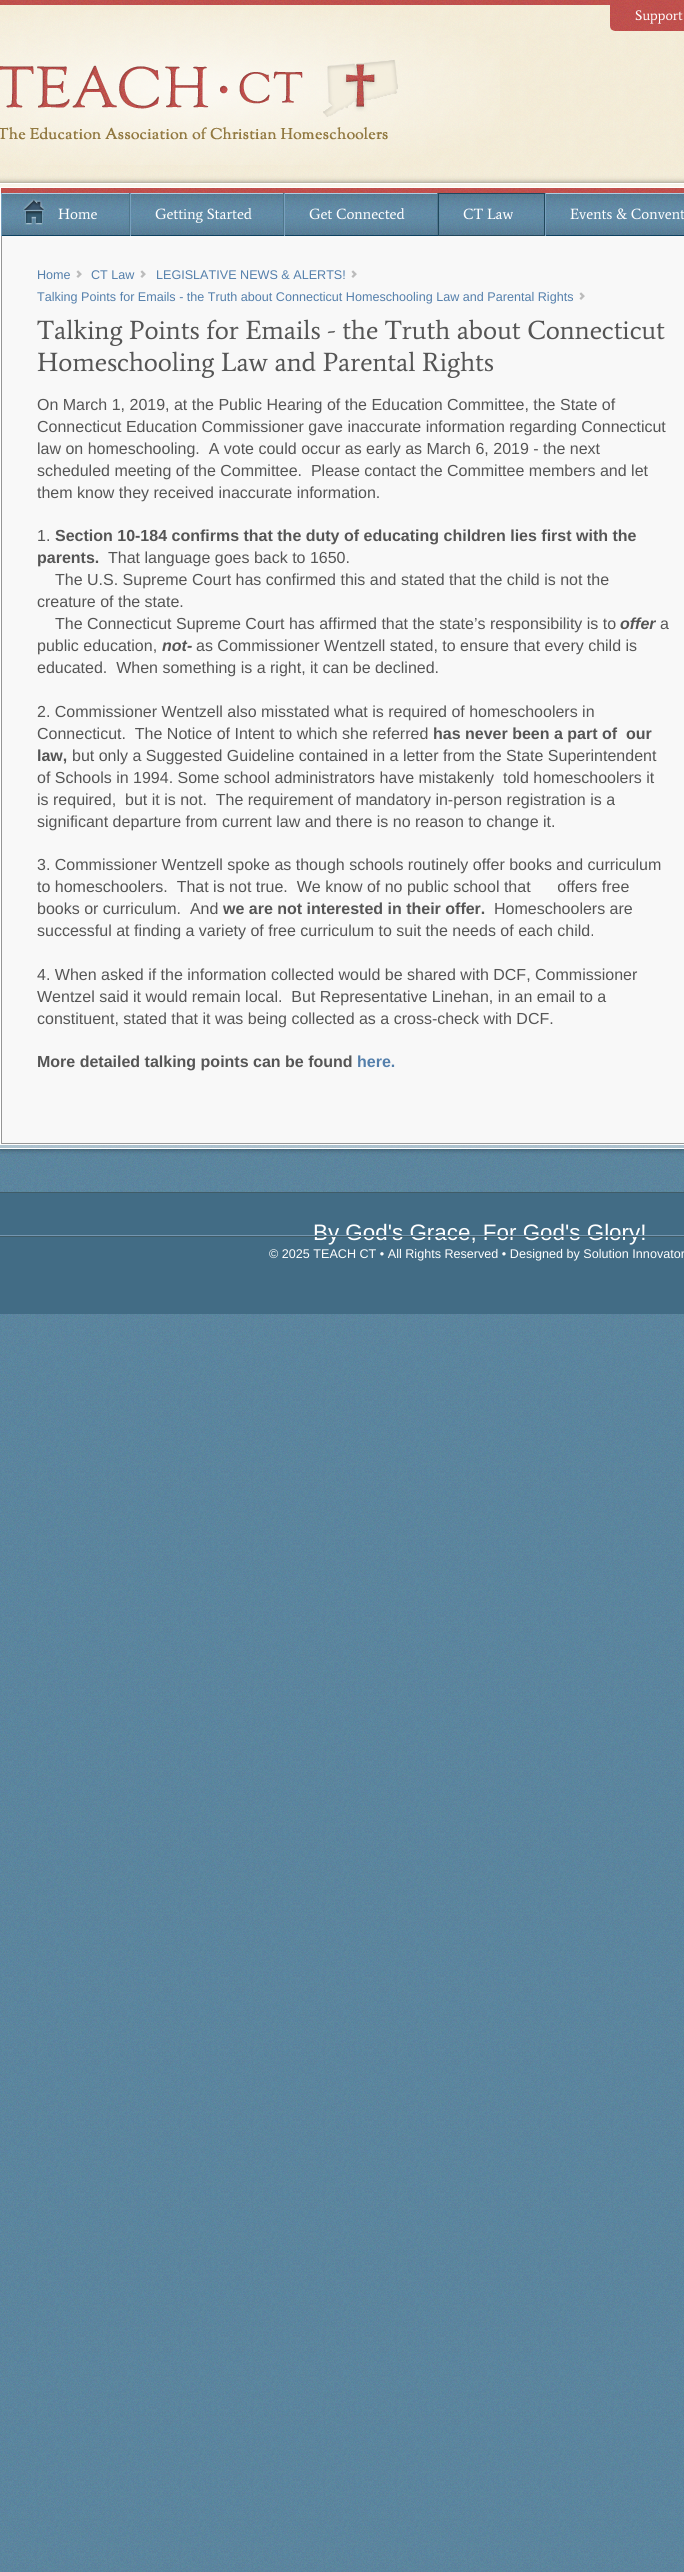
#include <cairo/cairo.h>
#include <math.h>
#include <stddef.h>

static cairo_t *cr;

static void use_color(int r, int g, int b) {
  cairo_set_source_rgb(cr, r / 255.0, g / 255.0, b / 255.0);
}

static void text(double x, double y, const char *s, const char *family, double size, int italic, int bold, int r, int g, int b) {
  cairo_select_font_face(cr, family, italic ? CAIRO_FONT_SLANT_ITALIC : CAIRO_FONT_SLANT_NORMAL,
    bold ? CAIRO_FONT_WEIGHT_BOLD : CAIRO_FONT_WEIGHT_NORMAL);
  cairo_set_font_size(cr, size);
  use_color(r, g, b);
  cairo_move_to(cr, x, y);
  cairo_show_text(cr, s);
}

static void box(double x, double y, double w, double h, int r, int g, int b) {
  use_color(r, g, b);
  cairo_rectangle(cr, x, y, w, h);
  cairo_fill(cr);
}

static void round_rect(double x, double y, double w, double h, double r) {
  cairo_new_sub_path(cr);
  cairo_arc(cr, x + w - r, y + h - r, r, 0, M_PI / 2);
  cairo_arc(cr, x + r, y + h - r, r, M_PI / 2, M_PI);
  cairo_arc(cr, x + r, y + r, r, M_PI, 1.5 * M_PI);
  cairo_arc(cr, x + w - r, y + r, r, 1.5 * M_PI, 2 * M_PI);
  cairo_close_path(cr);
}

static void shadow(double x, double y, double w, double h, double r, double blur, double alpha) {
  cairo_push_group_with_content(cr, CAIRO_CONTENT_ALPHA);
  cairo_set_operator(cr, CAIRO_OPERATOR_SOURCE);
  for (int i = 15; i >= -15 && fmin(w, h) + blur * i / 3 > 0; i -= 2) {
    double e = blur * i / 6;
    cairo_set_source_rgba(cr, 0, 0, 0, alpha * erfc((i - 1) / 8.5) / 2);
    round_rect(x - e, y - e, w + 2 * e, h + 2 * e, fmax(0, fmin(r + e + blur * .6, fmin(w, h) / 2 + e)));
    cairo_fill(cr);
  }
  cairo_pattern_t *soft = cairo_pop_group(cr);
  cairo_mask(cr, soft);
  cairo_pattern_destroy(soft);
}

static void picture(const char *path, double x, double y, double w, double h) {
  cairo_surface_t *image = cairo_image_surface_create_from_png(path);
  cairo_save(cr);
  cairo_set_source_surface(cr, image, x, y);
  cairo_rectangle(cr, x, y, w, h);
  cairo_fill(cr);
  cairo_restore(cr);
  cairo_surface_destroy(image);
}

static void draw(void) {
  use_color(255, 255, 255);
  cairo_paint(cr);
  picture("img_01.png", 0, 1145, 684, 1427);
  picture("img_02.png", 0, 0, 684, 5);
  picture("img_03.png", 0, 5, 684, 182);
  picture("img_04.png", 0, 10, 500, 155);
  picture("img_05.png", 610, 5, 74, 26);
  cairo_save(cr);
  cairo_set_fill_rule(cr, CAIRO_FILL_RULE_EVEN_ODD);
  cairo_new_path(cr);
  cairo_move_to(cr, 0, 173);
  cairo_line_to(cr, 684, 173);
  cairo_line_to(cr, 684, 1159);
  cairo_line_to(cr, 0, 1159);
  cairo_close_path(cr);
  cairo_move_to(cr, -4, 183);
  cairo_line_to(cr, 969, 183);
  cairo_line_to(cr, 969, 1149);
  cairo_line_to(cr, -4, 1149);
  cairo_close_path(cr);
  cairo_clip(cr);
  use_color(0, 0, 0);
  shadow(-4, 183, 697, 966, 0, 3, 0.5);
  cairo_restore(cr);
  cairo_set_source_rgba(cr, 1, 1, 1, 0.5);
  cairo_rectangle(cr, -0.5, 183.5, 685, 965);
  cairo_fill_preserve(cr);
  use_color(255, 255, 255);
  cairo_set_line_width(cr, 1);
  cairo_stroke(cr);
  picture("img_06.png", 1, 188, 683, 5);
  picture("img_07.png", 2, 193, 682, 43);
  box(129, 193, 1, 43, 79, 118, 139);
  box(1, 235, 129, 1, 13, 65, 96);
  box(1, 193, 1, 43, 120, 160, 189);
  picture("img_08.png", 23, 199, 22, 26);
  box(283, 193, 1, 43, 79, 118, 139);
  box(283, 235, 1, 1, 13, 65, 96);
  box(130, 193, 1, 43, 120, 160, 189);
  box(437, 193, 1, 43, 79, 118, 139);
  box(437, 235, 1, 1, 13, 65, 96);
  box(284, 193, 1, 43, 120, 160, 189);
  cairo_rectangle(cr, 438.5, 193.5, 106, 42);
  use_color(32, 71, 92);
  cairo_stroke(cr);
  box(545, 193, 1, 43, 120, 160, 189);
  box(1, 236, 683, 908, 248, 248, 248);
  use_color(149, 149, 149);
  cairo_new_path(cr);
  cairo_move_to(cr, 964, 1144);
  cairo_line_to(cr, 1, 1144);
  cairo_line_to(cr, 2, 1143);
  cairo_line_to(cr, 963, 1143);
  cairo_close_path(cr);
  cairo_fill(cr);
  cairo_set_source_rgba(cr, 0, 0, 0, 0.4);
  cairo_new_path(cr);
  cairo_move_to(cr, 1, 1144);
  cairo_line_to(cr, 1, 236);
  cairo_line_to(cr, 2, 236);
  cairo_line_to(cr, 2, 1143);
  cairo_close_path(cr);
  cairo_fill(cr);
  box(0, 1193, 684, 121, 66, 108, 133);
  box(0, 1192, 684, 1, 64, 92, 103);
  text(635, 20, "Support", "Average", 14, 0, 0, 255, 255, 255);
  text(58, 219, "Home", "Average", 15, 0, 0, 255, 255, 255);
  text(155, 219, "Getting Started", "Average", 15, 0, 0, 255, 255, 255);
  text(309, 219, "Get Connected", "Average", 15, 0, 0, 255, 255, 255);
  text(463, 219, "CT Law", "Average", 15, 0, 0, 255, 255, 255);
  text(570, 219, "Events & Convent", "Average", 15, 0, 0, 255, 255, 255);
  text(37, 279, "Home", "Liberation Sans", 12.6, 0, 0, 84, 127, 171);
  text(74, 279, "Î", "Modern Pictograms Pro", 16, 0, 0, 187, 187, 187);
  text(91, 279, "CT Law", "Liberation Sans", 12.6, 0, 0, 84, 127, 171);
  text(138, 279, "Î", "Modern Pictograms Pro", 16, 0, 0, 187, 187, 187);
  text(156, 279, "LEGISLATIVE NEWS & ALERTS!", "Liberation Sans", 12.6, 0, 0, 84, 127, 171);
  text(349, 279, "Î", "Modern Pictograms Pro", 16, 0, 0, 187, 187, 187);
  text(37, 301, "Talking Points for Emails - the Truth about Connecticut Homeschooling Law and Parental Rights", "Liberation Sans", 12.6, 0, 0, 84, 127, 171);
  text(577, 301, "Î", "Modern Pictograms Pro", 16, 0, 0, 187, 187, 187);
  text(37, 339, "Talking Points for Emails - the Truth about Connecticut", "Average", 26.6, 0, 0, 85, 85, 85);
  text(37, 371, "Homeschooling Law and Parental Rights", "Average", 26.6, 0, 0, 85, 85, 85);
  text(37, 410, "On March 1, 2019, at the Public Hearing of the Education Committee, the State of", "Liberation Sans", 16, 0, 0, 85, 85, 85);
  text(37, 432, "Connecticut Education Commissioner gave inaccurate information regarding Connecticut", "Liberation Sans", 16, 0, 0, 85, 85, 85);
  text(37, 454, "law on homeschooling.  A vote could occur as early as March 6, 2019 - the next", "Liberation Sans", 16, 0, 0, 85, 85, 85);
  text(37, 476, "scheduled meeting of the Committee.  Please contact the Committee members and let", "Liberation Sans", 16, 0, 0, 85, 85, 85);
  text(37, 498, "them know they received inaccurate information.", "Liberation Sans", 16, 0, 0, 85, 85, 85);
  text(37, 541, "1.", "Liberation Sans", 16, 0, 0, 85, 85, 85);
  text(55, 541, "Section 10-184 confirms that the duty of educating children lies first with the", "Liberation Sans", 16, 0, 1, 85, 85, 85);
  text(37, 563, "parents.", "Liberation Sans", 16, 0, 1, 85, 85, 85);
  text(108, 563, "That language goes back to 1650.", "Liberation Sans", 16, 0, 0, 85, 85, 85);
  text(55, 585, "The U.S. Supreme Court has confirmed this and stated that the child is not the", "Liberation Sans", 16, 0, 0, 85, 85, 85);
  text(37, 607, "creature of the state.", "Liberation Sans", 16, 0, 0, 85, 85, 85);
  text(55, 629, "The Connecticut Supreme Court has affirmed that the state’s responsibility is to", "Liberation Sans", 16, 0, 0, 85, 85, 85);
  text(620, 629, "offer", "Liberation Sans", 16, 1, 1, 85, 85, 85);
  text(660, 629, "a", "Liberation Sans", 16, 0, 0, 85, 85, 85);
  text(37, 651, "public education,", "Liberation Sans", 16, 0, 0, 85, 85, 85);
  text(162, 651, "not-", "Liberation Sans", 16, 1, 1, 85, 85, 85);
  text(196, 651, "as Commissioner Wentzell stated, to ensure that every child is", "Liberation Sans", 16, 0, 0, 85, 85, 85);
  text(37, 673, "educated.  When something is a right, it can be declined.", "Liberation Sans", 16, 0, 0, 85, 85, 85);
  text(37, 717, "2. Commissioner Wentzell also misstated what is required of homeschoolers in", "Liberation Sans", 16, 0, 0, 85, 85, 85);
  text(37, 739, "Connecticut.  The Notice of Intent to which she referred", "Liberation Sans", 16, 0, 0, 85, 85, 85);
  text(433, 739, "has never been a part of  our", "Liberation Sans", 16, 0, 1, 85, 85, 85);
  text(37, 761, "law,", "Liberation Sans", 16, 0, 1, 85, 85, 85);
  text(72, 761, "but only a Suggested Guideline contained in a letter from the State Superintendent", "Liberation Sans", 16, 0, 0, 85, 85, 85);
  text(37, 783, "of Schools in 1994. Some school administrators have mistakenly  told homeschoolers it", "Liberation Sans", 16, 0, 0, 85, 85, 85);
  text(37, 805, "is required,  but it is not.  The requirement of mandatory in-person registration is a", "Liberation Sans", 16, 0, 0, 85, 85, 85);
  text(37, 827, "significant departure from current law and there is no reason to change it.", "Liberation Sans", 16, 0, 0, 85, 85, 85);
  text(37, 870, "3. Commissioner Wentzell spoke as though schools routinely offer books and curriculum", "Liberation Sans", 16, 0, 0, 85, 85, 85);
  text(37, 892, "to homeschoolers.  That is not true.  We know of no public school that      offers free", "Liberation Sans", 16, 0, 0, 85, 85, 85);
  text(37, 914, "books or curriculum.  And", "Liberation Sans", 16, 0, 0, 85, 85, 85);
  text(223, 914, "we are not interested in their offer.", "Liberation Sans", 16, 0, 1, 85, 85, 85);
  text(494, 914, "Homeschoolers are", "Liberation Sans", 16, 0, 0, 85, 85, 85);
  text(37, 936, "successful at finding a variety of free curriculum to suit the needs of each child.", "Liberation Sans", 16, 0, 0, 85, 85, 85);
  text(37, 980, "4. When asked if the information collected would be shared with DCF, Commissioner", "Liberation Sans", 16, 0, 0, 85, 85, 85);
  text(37, 1002, "Wentzel said it would remain local.  But Representative Linehan, in an email to a", "Liberation Sans", 16, 0, 0, 85, 85, 85);
  text(37, 1024, "constituent, stated that it was being collected as a cross-check with DCF.", "Liberation Sans", 16, 0, 0, 85, 85, 85);
  text(37, 1067, "More detailed talking points can be found", "Liberation Sans", 16, 0, 1, 85, 85, 85);
  text(357, 1067, "here.", "Liberation Sans", 16, 0, 1, 84, 127, 171);
  text(313, 1240, "By God's Grace, For God's Glory!", "Liberation Sans", 22.4, 0, 0, 255, 255, 255);
  box(0, 1235, 684, 1, 116, 150, 176);
  box(0, 1236, 684, 1, 64, 92, 103);
  text(269, 1258, "© 2025 TEACH CT • All Rights Reserved • Designed by Solution Innovator", "Liberation Sans", 12.6, 0, 0, 255, 255, 255);
}

int main(void) {
  cairo_surface_t *surface = cairo_image_surface_create(CAIRO_FORMAT_RGB24, 684, 2572);
  cr = cairo_create(surface);
  cairo_font_options_t *options = cairo_font_options_create();
  cairo_font_options_set_hint_metrics(options, CAIRO_HINT_METRICS_OFF);
  cairo_font_options_set_hint_style(options, CAIRO_HINT_STYLE_NONE);
  cairo_set_font_options(cr, options);
  cairo_set_miter_limit(cr, 4);
  draw();
  cairo_surface_write_to_png(surface, "out.png");
  cairo_font_options_destroy(options);
  cairo_destroy(cr);
  cairo_surface_destroy(surface);
  return 0;
}
